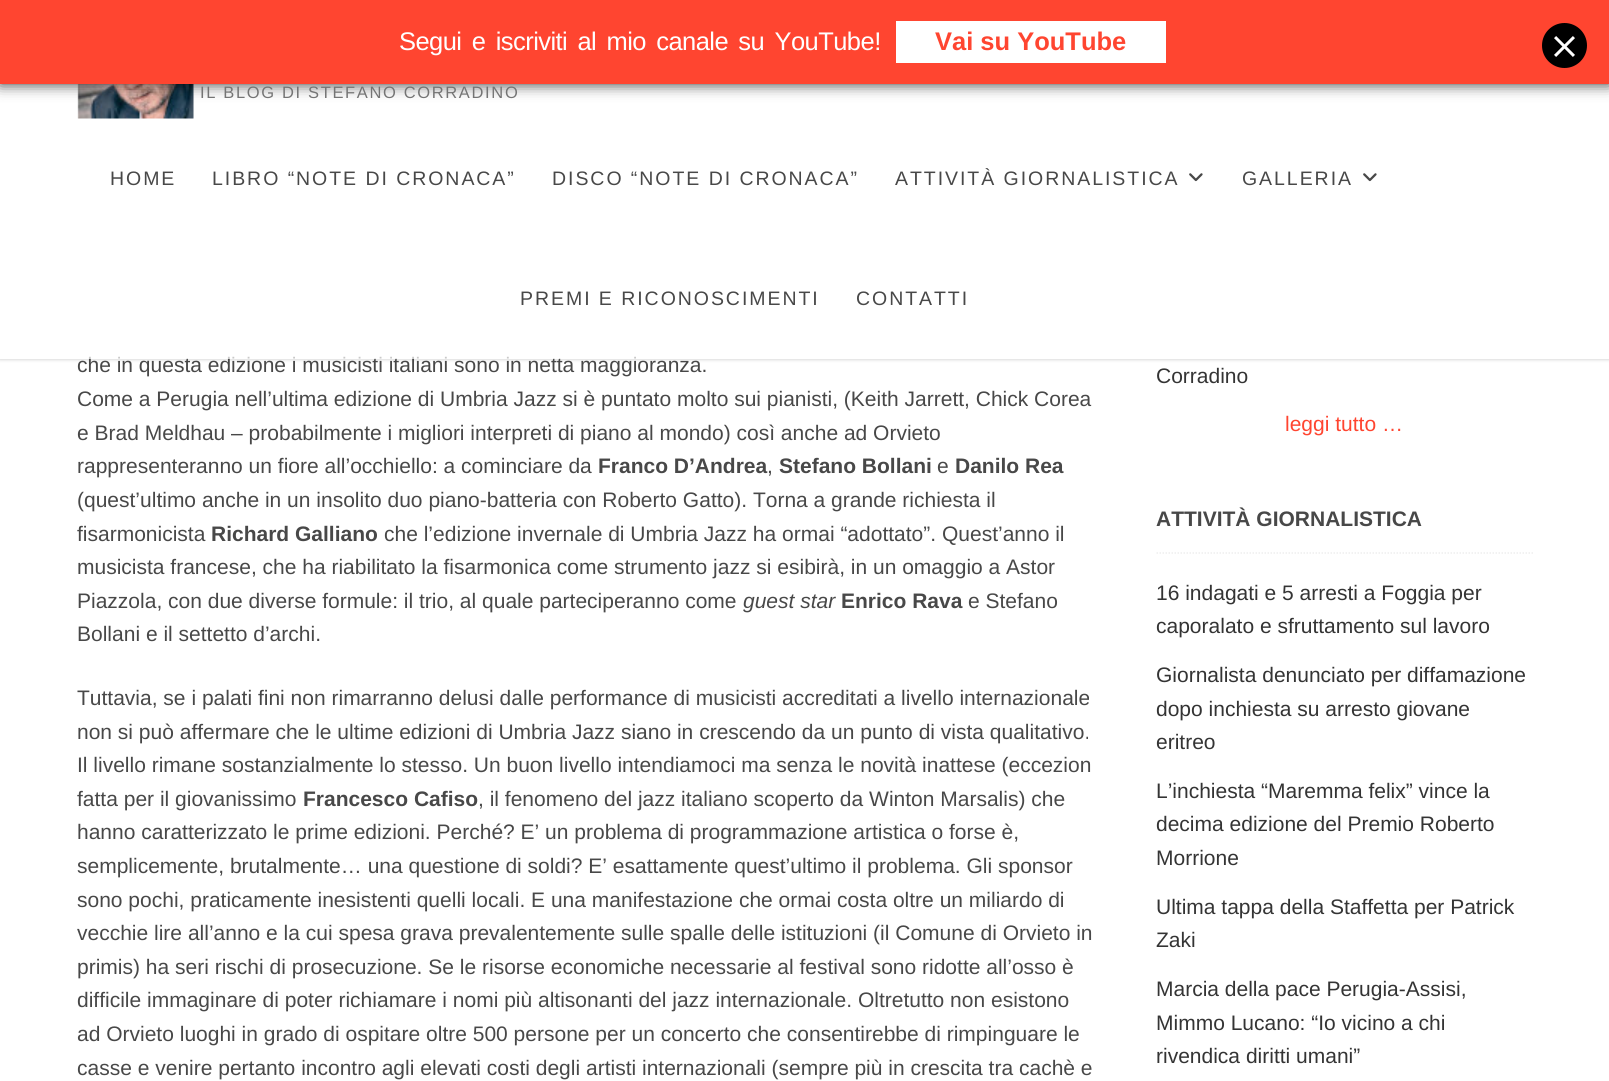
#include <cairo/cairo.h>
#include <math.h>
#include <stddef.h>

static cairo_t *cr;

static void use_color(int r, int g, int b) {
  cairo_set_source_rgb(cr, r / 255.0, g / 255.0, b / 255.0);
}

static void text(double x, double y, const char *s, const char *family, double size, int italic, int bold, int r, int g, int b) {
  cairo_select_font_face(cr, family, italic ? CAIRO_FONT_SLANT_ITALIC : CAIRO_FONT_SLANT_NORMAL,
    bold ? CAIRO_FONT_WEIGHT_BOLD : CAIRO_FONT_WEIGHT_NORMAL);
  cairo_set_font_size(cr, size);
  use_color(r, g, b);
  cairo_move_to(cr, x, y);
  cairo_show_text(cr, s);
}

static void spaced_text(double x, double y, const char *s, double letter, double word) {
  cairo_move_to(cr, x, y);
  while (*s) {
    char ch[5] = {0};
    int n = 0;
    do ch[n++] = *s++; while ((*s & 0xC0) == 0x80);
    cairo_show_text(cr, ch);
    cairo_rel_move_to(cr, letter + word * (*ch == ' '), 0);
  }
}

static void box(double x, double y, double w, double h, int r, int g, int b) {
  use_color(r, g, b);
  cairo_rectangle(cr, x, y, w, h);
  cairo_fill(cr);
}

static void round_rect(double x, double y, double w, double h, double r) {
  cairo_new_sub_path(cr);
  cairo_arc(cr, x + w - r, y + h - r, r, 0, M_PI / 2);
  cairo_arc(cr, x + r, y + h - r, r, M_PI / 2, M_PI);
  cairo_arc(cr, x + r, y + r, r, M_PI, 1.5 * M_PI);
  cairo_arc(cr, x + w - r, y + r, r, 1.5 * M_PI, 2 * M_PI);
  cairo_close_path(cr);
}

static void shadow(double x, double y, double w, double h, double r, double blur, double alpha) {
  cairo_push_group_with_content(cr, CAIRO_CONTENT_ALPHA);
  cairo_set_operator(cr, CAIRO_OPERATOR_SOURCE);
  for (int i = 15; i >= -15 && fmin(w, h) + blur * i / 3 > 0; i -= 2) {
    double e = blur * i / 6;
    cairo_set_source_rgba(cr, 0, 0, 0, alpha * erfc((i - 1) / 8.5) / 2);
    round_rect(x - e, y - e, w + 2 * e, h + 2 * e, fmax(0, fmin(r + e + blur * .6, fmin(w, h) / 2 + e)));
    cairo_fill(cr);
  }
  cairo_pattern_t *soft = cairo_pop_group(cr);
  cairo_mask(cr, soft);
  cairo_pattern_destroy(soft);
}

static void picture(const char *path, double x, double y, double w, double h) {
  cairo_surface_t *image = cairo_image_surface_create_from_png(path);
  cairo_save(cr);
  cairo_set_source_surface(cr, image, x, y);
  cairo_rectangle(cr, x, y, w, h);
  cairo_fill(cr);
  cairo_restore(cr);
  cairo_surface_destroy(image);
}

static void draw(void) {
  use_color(255, 255, 255);
  cairo_paint(cr);
  cairo_save(cr);
  cairo_set_fill_rule(cr, CAIRO_FILL_RULE_EVEN_ODD);
  cairo_new_path(cr);
  cairo_move_to(cr, 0, 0);
  cairo_line_to(cr, 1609, 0);
  cairo_line_to(cr, 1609, 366);
  cairo_line_to(cr, 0, 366);
  cairo_close_path(cr);
  cairo_move_to(cr, 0, 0);
  cairo_line_to(cr, 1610, 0);
  cairo_line_to(cr, 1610, 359);
  cairo_line_to(cr, 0, 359);
  cairo_close_path(cr);
  cairo_clip(cr);
  use_color(0, 0, 0);
  shadow(0, 2, 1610, 358, 0, 1.5, 0.15);
  cairo_restore(cr);
  picture("img_02.png", 77, 84, 117, 35);
  use_color(0, 0, 0);
  shadow(0, 0, 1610, 84, 0, 7.5, 0.8);
  box(0, 0, 1609, 84, 255, 69, 48);
  box(896, 21, 270, 42, 255, 255, 255);
  use_color(0, 0, 0);
  cairo_arc(cr, 1564.5, 45.5, 21, 0, 2 * M_PI);
  cairo_fill_preserve(cr);
  cairo_set_line_width(cr, 3);
  cairo_stroke(cr);
  picture("img_01.png", 1554, 36, 21, 21);
  picture("img_03.png", 1189, 173, 14, 9);
  picture("img_04.png", 1363, 173, 14, 9);
  cairo_new_path(cr);
  cairo_move_to(cr, 1156.5, 553);
  cairo_line_to(cr, 1533, 553);
  use_color(238, 238, 238);
  cairo_set_line_width(cr, 1.5);
  cairo_set_dash(cr, (double[]){1.5, 1.5}, 2, 0);
  cairo_stroke(cr);
  cairo_select_font_face(cr, "Liberation Sans", CAIRO_FONT_SLANT_NORMAL, CAIRO_FONT_WEIGHT_NORMAL);
  cairo_set_font_size(cr, 25.5);
  use_color(255, 255, 255);
  spaced_text(399, 50, "Segui e iscriviti al mio canale su YouTube!", -0.55, 3.75);
  text(935, 50, "Vai su YouTube", "Liberation Sans", 25.5, 0, 1, 255, 69, 48);
  cairo_select_font_face(cr, "Arimo", CAIRO_FONT_SLANT_NORMAL, CAIRO_FONT_WEIGHT_NORMAL);
  cairo_set_font_size(cr, 16.5);
  use_color(116, 116, 116);
  spaced_text(200, 98, "IL BLOG DI STEFANO CORRADINO", 1.65, 0);
  cairo_set_font_size(cr, 19.5);
  use_color(72, 72, 72);
  spaced_text(110, 185, "HOME", 1.95, 0);
  spaced_text(212, 185, "LIBRO “NOTE DI CRONACA”", 1.95, 0);
  spaced_text(552, 185, "DISCO “NOTE DI CRONACA”", 1.95, 0);
  spaced_text(895, 185, "ATTIVITÀ GIORNALISTICA", 1.95, 0);
  spaced_text(1242, 185, "GALLERIA", 1.95, 0);
  spaced_text(520, 305, "PREMI E RICONOSCIMENTI", 1.95, 0);
  spaced_text(856, 305, "CONTATTI", 1.95, 0);
  text(77, 372, "che in questa edizione i musicisti italiani sono in netta maggioranza.", "Arimo", 21, 0, 0, 72, 72, 72);
  cairo_set_source_rgba(cr, 1, 1, 1, 0.7);
  cairo_rectangle(cr, 0, 356, 1609, 3);
  cairo_fill(cr);
  text(77, 406, "Come a Perugia nell’ultima edizione di Umbria Jazz si è puntato molto sui pianisti, (Keith Jarrett, Chick Corea", "Arimo", 21, 0, 0, 72, 72, 72);
  text(77, 440, "e Brad Meldhau – probabilmente i migliori interpreti di piano al mondo) così anche ad Orvieto", "Arimo", 21, 0, 0, 72, 72, 72);
  text(77, 473, "rappresenteranno un fiore all’occhiello: a cominciare da", "Arimo", 21, 0, 0, 72, 72, 72);
  text(598, 473, "Franco D’Andrea", "Arimo", 21, 0, 1, 72, 72, 72);
  text(767, 473, ",", "Arimo", 21, 0, 0, 72, 72, 72);
  text(779, 473, "Stefano Bollani", "Arimo", 21, 0, 1, 72, 72, 72);
  text(937, 473, "e", "Arimo", 21, 0, 0, 72, 72, 72);
  text(955, 473, "Danilo Rea", "Arimo", 21, 0, 1, 72, 72, 72);
  text(77, 507, "(quest’ultimo anche in un insolito duo piano-batteria con Roberto Gatto). Torna a grande richiesta il", "Arimo", 21, 0, 0, 72, 72, 72);
  text(77, 541, "fisarmonicista", "Arimo", 21, 0, 0, 72, 72, 72);
  text(211, 541, "Richard Galliano", "Arimo", 21, 0, 1, 72, 72, 72);
  text(384, 541, "che l’edizione invernale di Umbria Jazz ha ormai “adottato”. Quest’anno il", "Arimo", 21, 0, 0, 72, 72, 72);
  text(77, 574, "musicista francese, che ha riabilitato la fisarmonica come strumento jazz si esibirà, in un omaggio a Astor", "Arimo", 21, 0, 0, 72, 72, 72);
  text(77, 608, "Piazzola, con due diverse formule: il trio, al quale parteciperanno come", "Arimo", 21, 0, 0, 72, 72, 72);
  text(743, 608, "guest star", "Arimo", 21, 1, 0, 72, 72, 72);
  text(841, 608, "Enrico Rava", "Arimo", 21, 0, 1, 72, 72, 72);
  text(968, 608, "e Stefano", "Arimo", 21, 0, 0, 72, 72, 72);
  text(77, 641, "Bollani e il settetto d’archi.", "Arimo", 21, 0, 0, 72, 72, 72);
  text(77, 705, "Tuttavia, se i palati fini non rimarranno delusi dalle performance di musicisti accreditati a livello internazionale", "Arimo", 21, 0, 0, 72, 72, 72);
  text(77, 739, "non si può affermare che le ultime edizioni di Umbria Jazz siano in crescendo da un punto di vista qualitativo.", "Arimo", 21, 0, 0, 72, 72, 72);
  text(77, 772, "Il livello rimane sostanzialmente lo stesso. Un buon livello intendiamoci ma senza le novità inattese (eccezion", "Arimo", 21, 0, 0, 72, 72, 72);
  text(77, 806, "fatta per il giovanissimo", "Arimo", 21, 0, 0, 72, 72, 72);
  text(303, 806, "Francesco Cafiso", "Arimo", 21, 0, 1, 72, 72, 72);
  text(478, 806, ", il fenomeno del jazz italiano scoperto da Winton Marsalis) che", "Arimo", 21, 0, 0, 72, 72, 72);
  text(77, 839, "hanno caratterizzato le prime edizioni. Perché? E’ un problema di programmazione artistica o forse è,", "Arimo", 21, 0, 0, 72, 72, 72);
  text(77, 873, "semplicemente, brutalmente… una questione di soldi? E’ esattamente quest’ultimo il problema. Gli sponsor", "Arimo", 21, 0, 0, 72, 72, 72);
  text(77, 907, "sono pochi, praticamente inesistenti quelli locali. E una manifestazione che ormai costa oltre un miliardo di", "Arimo", 21, 0, 0, 72, 72, 72);
  text(77, 940, "vecchie lire all’anno e la cui spesa grava prevalentemente sulle spalle delle istituzioni (il Comune di Orvieto in", "Arimo", 21, 0, 0, 72, 72, 72);
  text(77, 974, "primis) ha seri rischi di prosecuzione. Se le risorse economiche necessarie al festival sono ridotte all’osso è", "Arimo", 21, 0, 0, 72, 72, 72);
  text(77, 1007, "difficile immaginare di poter richiamare i nomi più altisonanti del jazz internazionale. Oltretutto non esistono", "Arimo", 21, 0, 0, 72, 72, 72);
  text(77, 1041, "ad Orvieto luoghi in grado di ospitare oltre 500 persone per un concerto che consentirebbe di rimpinguare le", "Arimo", 21, 0, 0, 72, 72, 72);
  text(77, 1075, "casse e venire pertanto incontro agli elevati costi degli artisti internazionali (sempre più in crescita tra cachè e", "Arimo", 21, 0, 0, 72, 72, 72);
  text(1156, 383, "Corradino", "Arimo", 21, 0, 0, 52, 52, 52);
  text(1285, 431, "leggi tutto …", "Arimo", 21, 0, 0, 255, 69, 48);
  text(1156, 526, "ATTIVITÀ GIORNALISTICA", "Arimo", 21, 0, 1, 72, 72, 72);
  text(1156, 600, "16 indagati e 5 arresti a Foggia per", "Arimo", 21, 0, 0, 52, 52, 52);
  text(1156, 633, "caporalato e sfruttamento sul lavoro", "Arimo", 21, 0, 0, 52, 52, 52);
  text(1156, 682, "Giornalista denunciato per diffamazione", "Arimo", 21, 0, 0, 52, 52, 52);
  text(1156, 716, "dopo inchiesta su arresto giovane", "Arimo", 21, 0, 0, 52, 52, 52);
  text(1156, 749, "eritreo", "Arimo", 21, 0, 0, 52, 52, 52);
  text(1156, 798, "L’inchiesta “Maremma felix” vince la", "Arimo", 21, 0, 0, 52, 52, 52);
  text(1156, 831, "decima edizione del Premio Roberto", "Arimo", 21, 0, 0, 52, 52, 52);
  text(1156, 865, "Morrione", "Arimo", 21, 0, 0, 52, 52, 52);
  text(1156, 914, "Ultima tappa della Staffetta per Patrick", "Arimo", 21, 0, 0, 52, 52, 52);
  text(1156, 947, "Zaki", "Arimo", 21, 0, 0, 52, 52, 52);
  text(1156, 996, "Marcia della pace Perugia-Assisi,", "Arimo", 21, 0, 0, 52, 52, 52);
  text(1156, 1030, "Mimmo Lucano: “Io vicino a chi", "Arimo", 21, 0, 0, 52, 52, 52);
  text(1156, 1063, "rivendica diritti umani”", "Arimo", 21, 0, 0, 52, 52, 52);
}

int main(void) {
  cairo_surface_t *surface = cairo_image_surface_create(CAIRO_FORMAT_RGB24, 1609, 1081);
  cr = cairo_create(surface);
  cairo_font_options_t *options = cairo_font_options_create();
  cairo_font_options_set_hint_metrics(options, CAIRO_HINT_METRICS_OFF);
  cairo_font_options_set_hint_style(options, CAIRO_HINT_STYLE_NONE);
  cairo_set_font_options(cr, options);
  cairo_set_miter_limit(cr, 4);
  draw();
  cairo_surface_write_to_png(surface, "out.png");
  cairo_font_options_destroy(options);
  cairo_destroy(cr);
  cairo_surface_destroy(surface);
  return 0;
}
